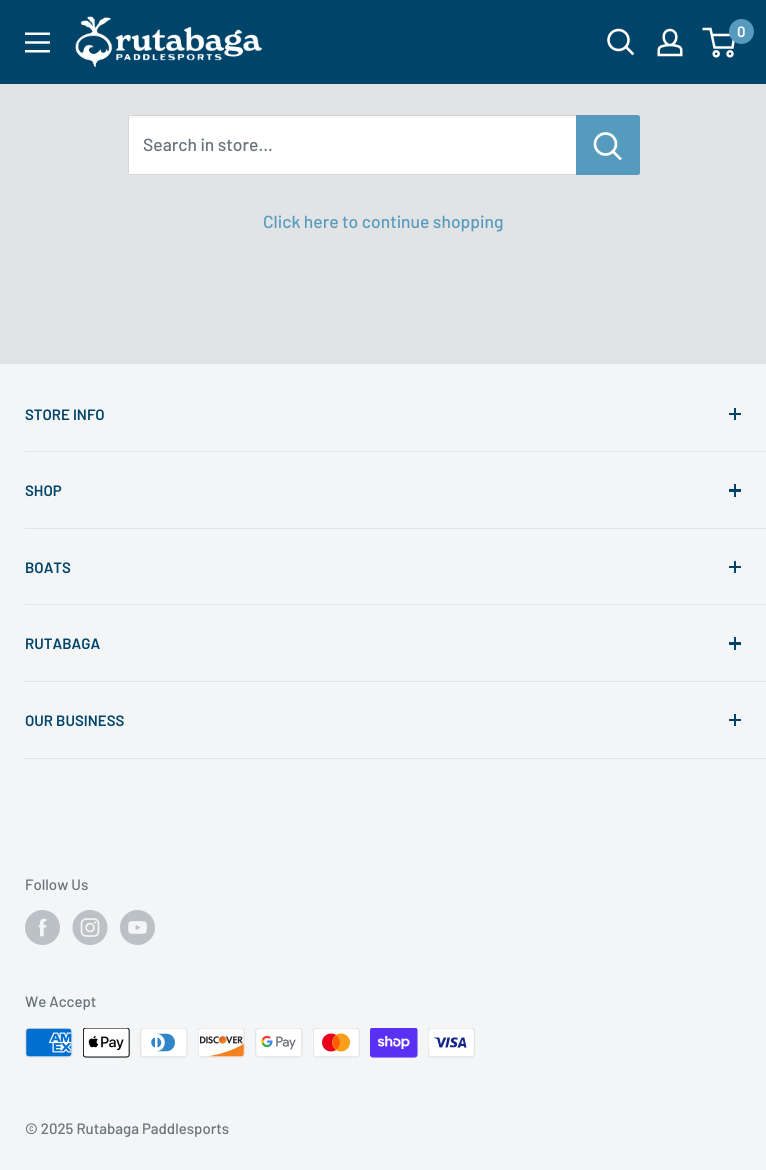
#include <cairo/cairo.h>
#include <math.h>
#include <stddef.h>

static cairo_t *cr;

static void use_color(int r, int g, int b) {
  cairo_set_source_rgb(cr, r / 255.0, g / 255.0, b / 255.0);
}

static void text(double x, double y, const char *s, const char *family, double size, int italic, int bold, int r, int g, int b) {
  cairo_select_font_face(cr, family, italic ? CAIRO_FONT_SLANT_ITALIC : CAIRO_FONT_SLANT_NORMAL,
    bold ? CAIRO_FONT_WEIGHT_BOLD : CAIRO_FONT_WEIGHT_NORMAL);
  cairo_set_font_size(cr, size);
  use_color(r, g, b);
  cairo_move_to(cr, x, y);
  cairo_show_text(cr, s);
}

static void box(double x, double y, double w, double h, int r, int g, int b) {
  use_color(r, g, b);
  cairo_rectangle(cr, x, y, w, h);
  cairo_fill(cr);
}

static void picture(const char *path, double x, double y, double w, double h) {
  cairo_surface_t *image = cairo_image_surface_create_from_png(path);
  cairo_save(cr);
  cairo_set_source_surface(cr, image, x, y);
  cairo_rectangle(cr, x, y, w, h);
  cairo_fill(cr);
  cairo_restore(cr);
  cairo_surface_destroy(image);
}

static void draw(void) {
  use_color(225, 227, 228);
  cairo_paint(cr);
  box(0, 0, 766, 84, 0, 68, 106);
  picture("img_01.png", 25, 32, 25, 21);
  picture("img_02.png", 75, 16, 188, 52);
  cairo_new_path(cr);
  cairo_move_to(cr, 632.5, 53.5);
  cairo_line_to(cr, 626, 47);
  use_color(255, 255, 255);
  cairo_set_line_width(cr, 2.6);
  cairo_set_line_cap(cr, CAIRO_LINE_CAP_SQUARE);
  cairo_stroke(cr);
  cairo_arc(cr, 618.5, 40, 10, 0, 2 * M_PI);
  cairo_set_line_cap(cr, CAIRO_LINE_CAP_BUTT);
  cairo_stroke(cr);
  picture("img_03.png", 657, 28, 26, 29);
  cairo_arc(cr, 716.2, 53.8, 2.5, 0, 2 * M_PI);
  cairo_set_line_width(cr, 2.5);
  cairo_stroke(cr);
  cairo_arc(cr, 730, 53.8, 2.5, 0, 2 * M_PI);
  cairo_stroke(cr);
  cairo_new_path(cr);
  cairo_move_to(cr, 711.5, 35);
  cairo_line_to(cr, 734.5, 35);
  cairo_line_to(cr, 732.5, 47.5);
  cairo_line_to(cr, 714.5, 47.5);
  cairo_line_to(cr, 710.5, 29);
  cairo_line_to(cr, 702.5, 29);
  cairo_stroke(cr);
  use_color(86, 155, 190);
  cairo_arc(cr, 741.5, 31.5, 12.5, 0, 2 * M_PI);
  cairo_fill(cr);
  use_color(255, 255, 255);
  cairo_new_path(cr);
  cairo_move_to(cr, 130.5, 115);
  cairo_line_to(cr, 576, 115);
  cairo_line_to(cr, 576, 175);
  cairo_line_to(cr, 130.5, 175);
  cairo_curve_to(cr, 129, 175, 128, 174, 128, 172.5);
  cairo_line_to(cr, 128, 117.5);
  cairo_curve_to(cr, 128, 116, 129, 115, 130.5, 115);
  cairo_close_path(cr);
  cairo_fill(cr);
  use_color(248, 248, 248);
  cairo_new_path(cr);
  cairo_move_to(cr, 130, 118);
  cairo_line_to(cr, 576, 118);
  cairo_line_to(cr, 576, 116);
  cairo_line_to(cr, 129, 116);
  cairo_line_to(cr, 129, 119);
  cairo_curve_to(cr, 129, 118, 129, 118, 130, 118);
  cairo_close_path(cr);
  cairo_fill(cr);
  box(129, 115, 447, 1, 212, 214, 216);
  box(129, 174, 447, 1, 212, 214, 216);
  box(128, 116, 1, 58, 212, 214, 216);
  use_color(86, 155, 190);
  cairo_new_path(cr);
  cairo_move_to(cr, 576, 115);
  cairo_line_to(cr, 637.5, 115);
  cairo_curve_to(cr, 639, 115, 640, 116, 640, 117.5);
  cairo_line_to(cr, 640, 172.5);
  cairo_curve_to(cr, 640, 174, 639, 175, 637.5, 175);
  cairo_line_to(cr, 576, 175);
  cairo_close_path(cr);
  cairo_fill(cr);
  cairo_new_path(cr);
  cairo_move_to(cr, 620, 158.5);
  cairo_line_to(cr, 613, 151.5);
  use_color(255, 255, 255);
  cairo_set_line_width(cr, 2.7);
  cairo_set_line_cap(cr, CAIRO_LINE_CAP_SQUARE);
  cairo_stroke(cr);
  cairo_arc(cr, 605.5, 144, 10.5, 0, 2 * M_PI);
  cairo_set_line_cap(cr, CAIRO_LINE_CAP_BUTT);
  cairo_stroke(cr);
  box(0, 364, 766, 806, 243, 245, 246);
  box(25, 451, 741, 1, 225, 227, 228);
  box(734, 408, 2, 12, 0, 68, 106);
  box(729, 413, 12, 2, 0, 68, 106);
  box(25, 528, 741, 1, 225, 227, 228);
  box(734, 484, 2, 13, 0, 68, 106);
  box(729, 489, 12, 3, 0, 68, 106);
  box(25, 604, 741, 1, 225, 227, 228);
  box(734, 561, 2, 12, 0, 68, 106);
  box(729, 566, 12, 2, 0, 68, 106);
  box(25, 681, 741, 1, 225, 227, 228);
  box(734, 637, 2, 13, 0, 68, 106);
  box(729, 642, 12, 3, 0, 68, 106);
  box(25, 758, 741, 1, 225, 227, 228);
  box(734, 714, 2, 12, 0, 68, 106);
  box(729, 719, 12, 2, 0, 68, 106);
  picture("img_04.png", 25, 910, 35, 35);
  picture("img_05.png", 72, 910, 36, 35);
  picture("img_06.png", 120, 910, 35, 35);
  picture("img_07.png", 25, 1028, 48, 30);
  picture("img_08.png", 83, 1028, 47, 30);
  picture("img_09.png", 140, 1028, 48, 30);
  picture("img_10.png", 198, 1028, 47, 30);
  picture("img_11.png", 255, 1028, 48, 30);
  picture("img_12.png", 313, 1028, 47, 30);
  picture("img_13.png", 370, 1028, 48, 30);
  picture("img_14.png", 428, 1028, 47, 30);
  text(737, 37, "0", "Barlow SemiBold", 15, 0, 0, 255, 255, 255);
  text(143, 151, "Search in store...", "Barlow Medium", 17.5, 0, 0, 103, 114, 121);
  text(263, 228, "Click here to continue shopping", "Barlow Medium", 17.5, 0, 0, 86, 155, 190);
  text(25, 420, "STORE INFO", "Barlow SemiBold", 15, 0, 0, 0, 68, 106);
  text(25, 496, "SHOP", "Barlow SemiBold", 15, 0, 0, 0, 68, 106);
  text(25, 573, "BOATS", "Barlow SemiBold", 15, 0, 0, 0, 68, 106);
  text(25, 649, "RUTABAGA", "Barlow SemiBold", 15, 0, 0, 0, 68, 106);
  text(25, 726, "OUR BUSINESS", "Barlow SemiBold", 15, 0, 0, 0, 68, 106);
  text(25, 890, "Follow Us", "Barlow Medium", 15, 0, 0, 103, 114, 121);
  text(25, 1007, "We Accept", "Barlow Medium", 15, 0, 0, 103, 114, 121);
  text(25, 1134, "© 2025 Rutabaga Paddlesports", "Barlow Medium", 15, 0, 0, 103, 114, 121);
}

int main(void) {
  cairo_surface_t *surface = cairo_image_surface_create(CAIRO_FORMAT_RGB24, 766, 1170);
  cr = cairo_create(surface);
  cairo_font_options_t *options = cairo_font_options_create();
  cairo_font_options_set_hint_metrics(options, CAIRO_HINT_METRICS_OFF);
  cairo_font_options_set_hint_style(options, CAIRO_HINT_STYLE_NONE);
  cairo_set_font_options(cr, options);
  cairo_set_miter_limit(cr, 4);
  draw();
  cairo_surface_write_to_png(surface, "out.png");
  cairo_font_options_destroy(options);
  cairo_destroy(cr);
  cairo_surface_destroy(surface);
  return 0;
}
